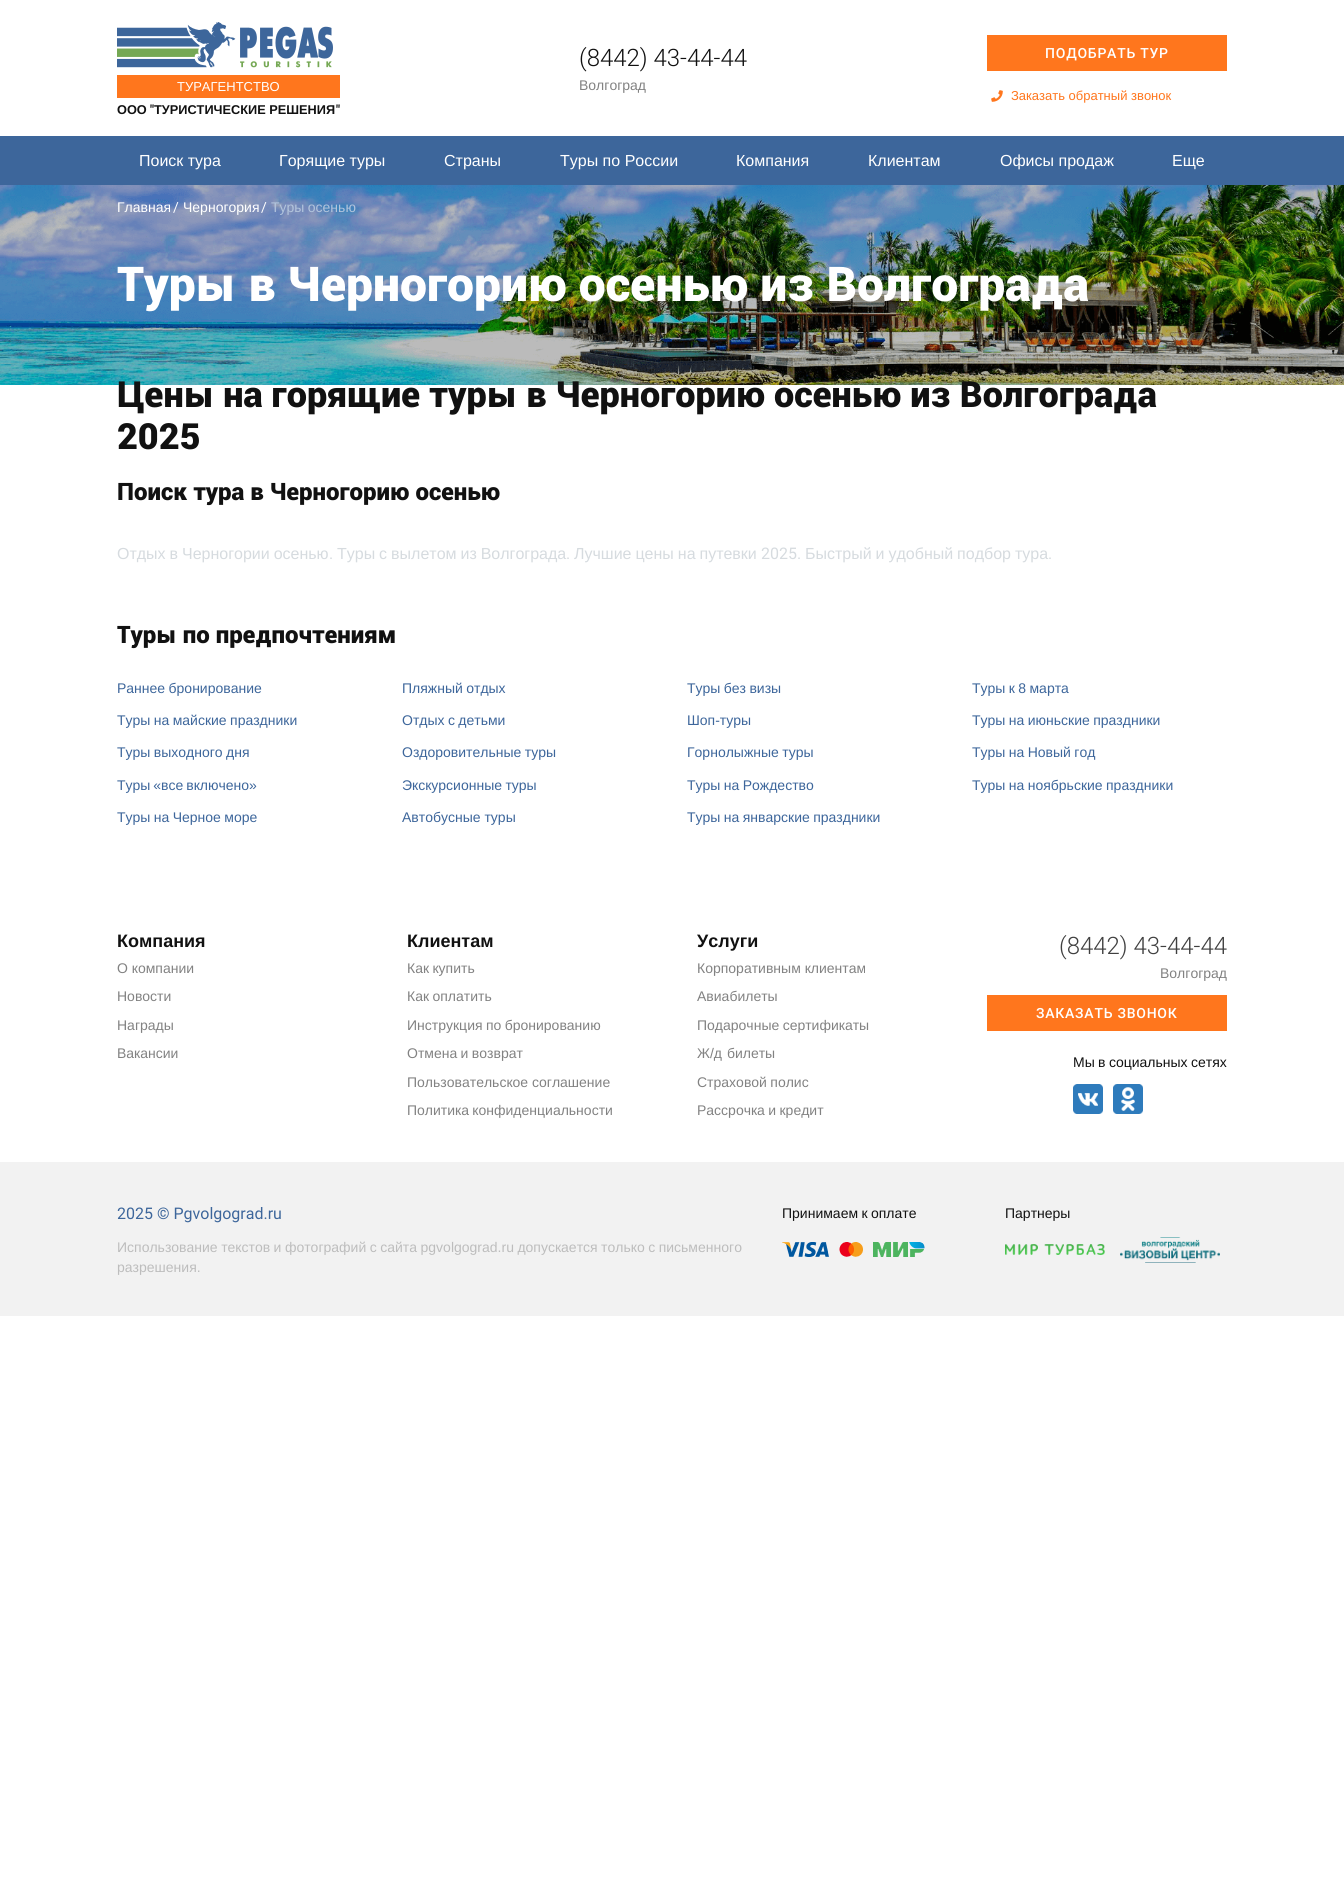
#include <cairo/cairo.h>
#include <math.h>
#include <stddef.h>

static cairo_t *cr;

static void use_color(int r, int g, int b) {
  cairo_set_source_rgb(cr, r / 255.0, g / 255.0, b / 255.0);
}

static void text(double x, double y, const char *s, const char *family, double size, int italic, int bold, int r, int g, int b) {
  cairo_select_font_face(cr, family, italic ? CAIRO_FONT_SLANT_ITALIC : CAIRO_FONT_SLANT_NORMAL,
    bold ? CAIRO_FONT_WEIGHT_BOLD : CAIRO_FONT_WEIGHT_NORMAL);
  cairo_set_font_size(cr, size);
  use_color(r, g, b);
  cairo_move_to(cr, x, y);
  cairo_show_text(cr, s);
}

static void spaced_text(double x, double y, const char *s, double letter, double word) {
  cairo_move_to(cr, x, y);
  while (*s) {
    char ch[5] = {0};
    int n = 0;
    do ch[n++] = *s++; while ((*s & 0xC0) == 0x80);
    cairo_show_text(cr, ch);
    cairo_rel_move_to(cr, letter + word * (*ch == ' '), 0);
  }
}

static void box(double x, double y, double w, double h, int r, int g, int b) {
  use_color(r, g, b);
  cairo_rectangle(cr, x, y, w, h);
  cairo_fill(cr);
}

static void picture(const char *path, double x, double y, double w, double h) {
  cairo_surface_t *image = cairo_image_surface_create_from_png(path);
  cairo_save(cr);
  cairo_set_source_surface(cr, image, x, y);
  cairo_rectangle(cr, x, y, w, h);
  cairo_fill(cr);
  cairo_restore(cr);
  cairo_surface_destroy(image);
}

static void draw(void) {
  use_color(255, 255, 255);
  cairo_paint(cr);
  picture("img_01.png", 117, 22, 216, 46);
  box(117, 75, 223, 23, 255, 118, 29);
  box(987, 35, 240, 36, 255, 118, 29);
  picture("img_02.png", 991, 90, 12, 12);
  box(0, 136, 1344, 49, 61, 102, 155);
  picture("img_03.png", 0, 185, 1344, 200);
  box(987, 995, 240, 36, 255, 118, 29);
  picture("img_04.png", 1073, 1084, 30, 30);
  picture("img_05.png", 1113, 1084, 30, 30);
  box(0, 1162, 1344, 154, 242, 242, 242);
  picture("img_06.png", 782, 1242, 47, 15);
  picture("img_07.png", 839, 1242, 24, 15);
  picture("img_08.png", 873, 1242, 52, 15);
  picture("img_09.png", 1005, 1244, 100, 11);
  picture("img_10.png", 1120, 1237, 100, 26);
  text(177, 91, "ТУРАГЕНТСТВО", "Liberation Sans", 13, 0, 0, 255, 255, 255);
  text(117, 114, "ООО", "Liberation Sans", 12.75, 0, 1, 17, 17, 17);
  text(150, 114, "\"", "Roboto", 12.75, 0, 1, 17, 17, 17);
  text(154, 114, "ТУРИСТИЧЕСКИЕ РЕШЕНИЯ", "Liberation Sans", 12.75, 0, 1, 17, 17, 17);
  text(336, 114, "\"", "Roboto", 12.75, 0, 1, 17, 17, 17);
  text(579, 66, "(8442) 43-44-44", "Roboto Light", 24, 0, 0, 17, 17, 17);
  text(579, 90, "Волгоград", "Liberation Sans", 14, 0, 0, 130, 130, 130);
  cairo_select_font_face(cr, "Roboto Medium", CAIRO_FONT_SLANT_NORMAL, CAIRO_FONT_WEIGHT_NORMAL);
  use_color(255, 255, 255);
  spaced_text(1045, 58, "ПОДОБРАТЬ ТУР", 0.75, 0);
  text(1011, 100, "Заказать обратный звонок", "Liberation Sans", 13, 0, 0, 255, 118, 29);
  text(139, 166, "Поиск тура", "Liberation Sans", 16, 0, 0, 255, 255, 255);
  text(279, 166, "Горящие туры", "Liberation Sans", 16, 0, 0, 255, 255, 255);
  text(444, 166, "Страны", "Liberation Sans", 16, 0, 0, 255, 255, 255);
  text(560, 166, "Туры по России", "Liberation Sans", 16, 0, 0, 255, 255, 255);
  text(736, 166, "Компания", "Liberation Sans", 16, 0, 0, 255, 255, 255);
  text(868, 166, "Клиентам", "Liberation Sans", 16, 0, 0, 255, 255, 255);
  text(1000, 166, "Офисы продаж", "Liberation Sans", 16, 0, 0, 255, 255, 255);
  text(1172, 166, "Еще", "Liberation Sans", 16, 0, 0, 255, 255, 255);
  text(117, 212, "Главная", "Liberation Sans", 14, 0, 0, 255, 255, 255);
  text(173, 212, "/", "Roboto", 14, 0, 0, 255, 255, 255);
  text(183, 212, "Черногория", "Liberation Sans", 14, 0, 0, 255, 255, 255);
  text(261, 212, "/", "Roboto", 14, 0, 0, 255, 255, 255);
  cairo_select_font_face(cr, "Liberation Sans", CAIRO_FONT_SLANT_NORMAL, CAIRO_FONT_WEIGHT_NORMAL);
  use_color(178, 196, 220);
  spaced_text(271, 212, "Туры осенью", 0, -0.5);
  text(117, 301, "Туры в Черногорию осенью из Волгограда", "Roboto Black", 48, 0, 0, 255, 255, 255);
  text(117, 407, "Цены на горящие туры в Черногорию осенью из Волгограда", "Roboto Black", 36, 0, 0, 17, 17, 17);
  text(117, 449, "2025", "Roboto Black", 36, 0, 0, 17, 17, 17);
  text(117, 500, "Поиск тура в Черногорию осенью", "Roboto Black", 24, 0, 0, 17, 17, 17);
  cairo_select_font_face(cr, "Liberation Sans", CAIRO_FONT_SLANT_NORMAL, CAIRO_FONT_WEIGHT_NORMAL);
  cairo_set_font_size(cr, 16);
  use_color(214, 219, 223);
  spaced_text(117, 559, "Отдых в Черногории осенью", 0, -0.5);
  text(329, 559, ".", "Roboto", 16, 0, 0, 214, 219, 223);
  cairo_select_font_face(cr, "Liberation Sans", CAIRO_FONT_SLANT_NORMAL, CAIRO_FONT_WEIGHT_NORMAL);
  spaced_text(337, 559, "Туры с вылетом из Волгограда", 0, -0.5);
  text(566, 559, ".", "Roboto", 16, 0, 0, 214, 219, 223);
  cairo_select_font_face(cr, "Liberation Sans", CAIRO_FONT_SLANT_NORMAL, CAIRO_FONT_WEIGHT_NORMAL);
  spaced_text(574, 559, "Лучшие цены на путевки", 0, -0.5);
  text(761, 559, "2025.", "Roboto", 16, 0, 0, 214, 219, 223);
  cairo_select_font_face(cr, "Liberation Sans", CAIRO_FONT_SLANT_NORMAL, CAIRO_FONT_WEIGHT_NORMAL);
  spaced_text(805, 559, "Быстрый и удобный подбор тура", 0, -0.5);
  text(1048, 559, ".", "Roboto", 16, 0, 0, 214, 219, 223);
  text(117, 643, "Туры по предпочтениям", "Roboto Black", 24, 0, 0, 17, 17, 17);
  cairo_select_font_face(cr, "Liberation Sans", CAIRO_FONT_SLANT_NORMAL, CAIRO_FONT_WEIGHT_NORMAL);
  cairo_set_font_size(cr, 14);
  use_color(61, 102, 155);
  spaced_text(117, 693, "Раннее бронирование", 0, -0.5);
  spaced_text(117, 725, "Туры на майские праздники", 0, -0.5);
  spaced_text(117, 757, "Туры выходного дня", 0, -0.5);
  spaced_text(117, 790, "Туры «все включено»", 0, -1);
  spaced_text(117, 822, "Туры на Черное море", 0, -0.5);
  spaced_text(402, 693, "Пляжный отдых", 0, -0.5);
  spaced_text(402, 725, "Отдых с детьми", 0, -0.5);
  spaced_text(402, 757, "Оздоровительные туры", 0, -0.5);
  spaced_text(402, 790, "Экскурсионные туры", 0, -0.5);
  text(402, 822, "Автобусные туры", "Liberation Sans", 14, 0, 0, 61, 102, 155);
  spaced_text(687, 693, "Туры без визы", 0, -0.5);
  text(687, 725, "Шоп-туры", "Liberation Sans", 14, 0, 0, 61, 102, 155);
  spaced_text(687, 757, "Горнолыжные туры", 0, -0.5);
  spaced_text(687, 790, "Туры на Рождество", 0, -0.5);
  spaced_text(687, 822, "Туры на январские праздники", 0, -0.5);
  spaced_text(972, 693, "Туры к 8 марта", 0, -0.5);
  spaced_text(972, 725, "Туры на июньские праздники", 0, -0.5);
  spaced_text(972, 757, "Туры на Новый год", 0, -0.5);
  spaced_text(972, 790, "Туры на ноябрьские праздники", 0, -0.5);
  text(117, 947, "Компания", "Liberation Sans", 18, 0, 1, 17, 17, 17);
  text(117, 973, "О компании", "Liberation Sans", 14, 0, 0, 130, 130, 130);
  text(117, 1001, "Новости", "Liberation Sans", 14, 0, 0, 130, 130, 130);
  text(117, 1030, "Награды", "Liberation Sans", 14, 0, 0, 130, 130, 130);
  text(117, 1058, "Вакансии", "Liberation Sans", 14, 0, 0, 130, 130, 130);
  text(407, 947, "Клиентам", "Liberation Sans", 18, 0, 1, 17, 17, 17);
  cairo_select_font_face(cr, "Liberation Sans", CAIRO_FONT_SLANT_NORMAL, CAIRO_FONT_WEIGHT_NORMAL);
  cairo_set_font_size(cr, 14);
  use_color(130, 130, 130);
  spaced_text(407, 973, "Как купить", 0, -0.5);
  spaced_text(407, 1001, "Как оплатить", 0, -0.5);
  spaced_text(407, 1030, "Инструкция по бронированию", 0, -0.5);
  spaced_text(407, 1058, "Отмена и возврат", 0, -0.5);
  text(407, 1087, "Пользовательское соглашение", "Liberation Sans", 14, 0, 0, 130, 130, 130);
  spaced_text(407, 1115, "Политика конфиденциальности", 0, -0.5);
  text(697, 947, "Услуги", "Liberation Sans", 18, 0, 1, 17, 17, 17);
  text(697, 973, "Корпоративным клиентам", "Liberation Sans", 14, 0, 0, 130, 130, 130);
  text(697, 1001, "Авиабилеты", "Liberation Sans", 14, 0, 0, 130, 130, 130);
  spaced_text(697, 1030, "Подарочные сертификаты", 0, -0.5);
  spaced_text(697, 1058, "Ж/д билеты", 0, 1);
  spaced_text(697, 1087, "Страховой полис", 0, -0.5);
  spaced_text(697, 1115, "Рассрочка и кредит", 0, -0.5);
  text(1059, 954, "(8442) 43-44-44", "Roboto Light", 24, 0, 0, 64, 64, 64);
  text(1160, 978, "Волгоград", "Liberation Sans", 14, 0, 0, 130, 130, 130);
  cairo_select_font_face(cr, "Roboto Medium", CAIRO_FONT_SLANT_NORMAL, CAIRO_FONT_WEIGHT_NORMAL);
  use_color(255, 255, 255);
  spaced_text(1036, 1018, "ЗАКАЗАТЬ ЗВОНОК", 0.75, 0);
  cairo_select_font_face(cr, "Liberation Sans", CAIRO_FONT_SLANT_NORMAL, CAIRO_FONT_WEIGHT_NORMAL);
  use_color(17, 17, 17);
  spaced_text(1073, 1067, "Мы в социальных сетях", 0, -0.5);
  text(117, 1219, "2025 © Pgvolgograd.ru", "Roboto", 16, 0, 0, 61, 102, 155);
  cairo_select_font_face(cr, "Liberation Sans", CAIRO_FONT_SLANT_NORMAL, CAIRO_FONT_WEIGHT_NORMAL);
  cairo_set_font_size(cr, 14);
  use_color(189, 189, 189);
  spaced_text(117, 1252, "Использование текстов и фотографий с сайта pgvolgograd.ru допускается только с письменного", 0, -0.4);
  text(117, 1272, "разрешения.", "Liberation Sans", 14, 0, 0, 189, 189, 189);
  use_color(17, 17, 17);
  spaced_text(782, 1218, "Принимаем к оплате", 0, -0.5);
  text(1005, 1218, "Партнеры", "Liberation Sans", 14, 0, 0, 17, 17, 17);
}

int main(void) {
  cairo_surface_t *surface = cairo_image_surface_create(CAIRO_FORMAT_RGB24, 1344, 1886);
  cr = cairo_create(surface);
  cairo_font_options_t *options = cairo_font_options_create();
  cairo_font_options_set_hint_metrics(options, CAIRO_HINT_METRICS_OFF);
  cairo_font_options_set_hint_style(options, CAIRO_HINT_STYLE_NONE);
  cairo_set_font_options(cr, options);
  cairo_set_miter_limit(cr, 4);
  draw();
  cairo_surface_write_to_png(surface, "out.png");
  cairo_font_options_destroy(options);
  cairo_destroy(cr);
  cairo_surface_destroy(surface);
  return 0;
}
